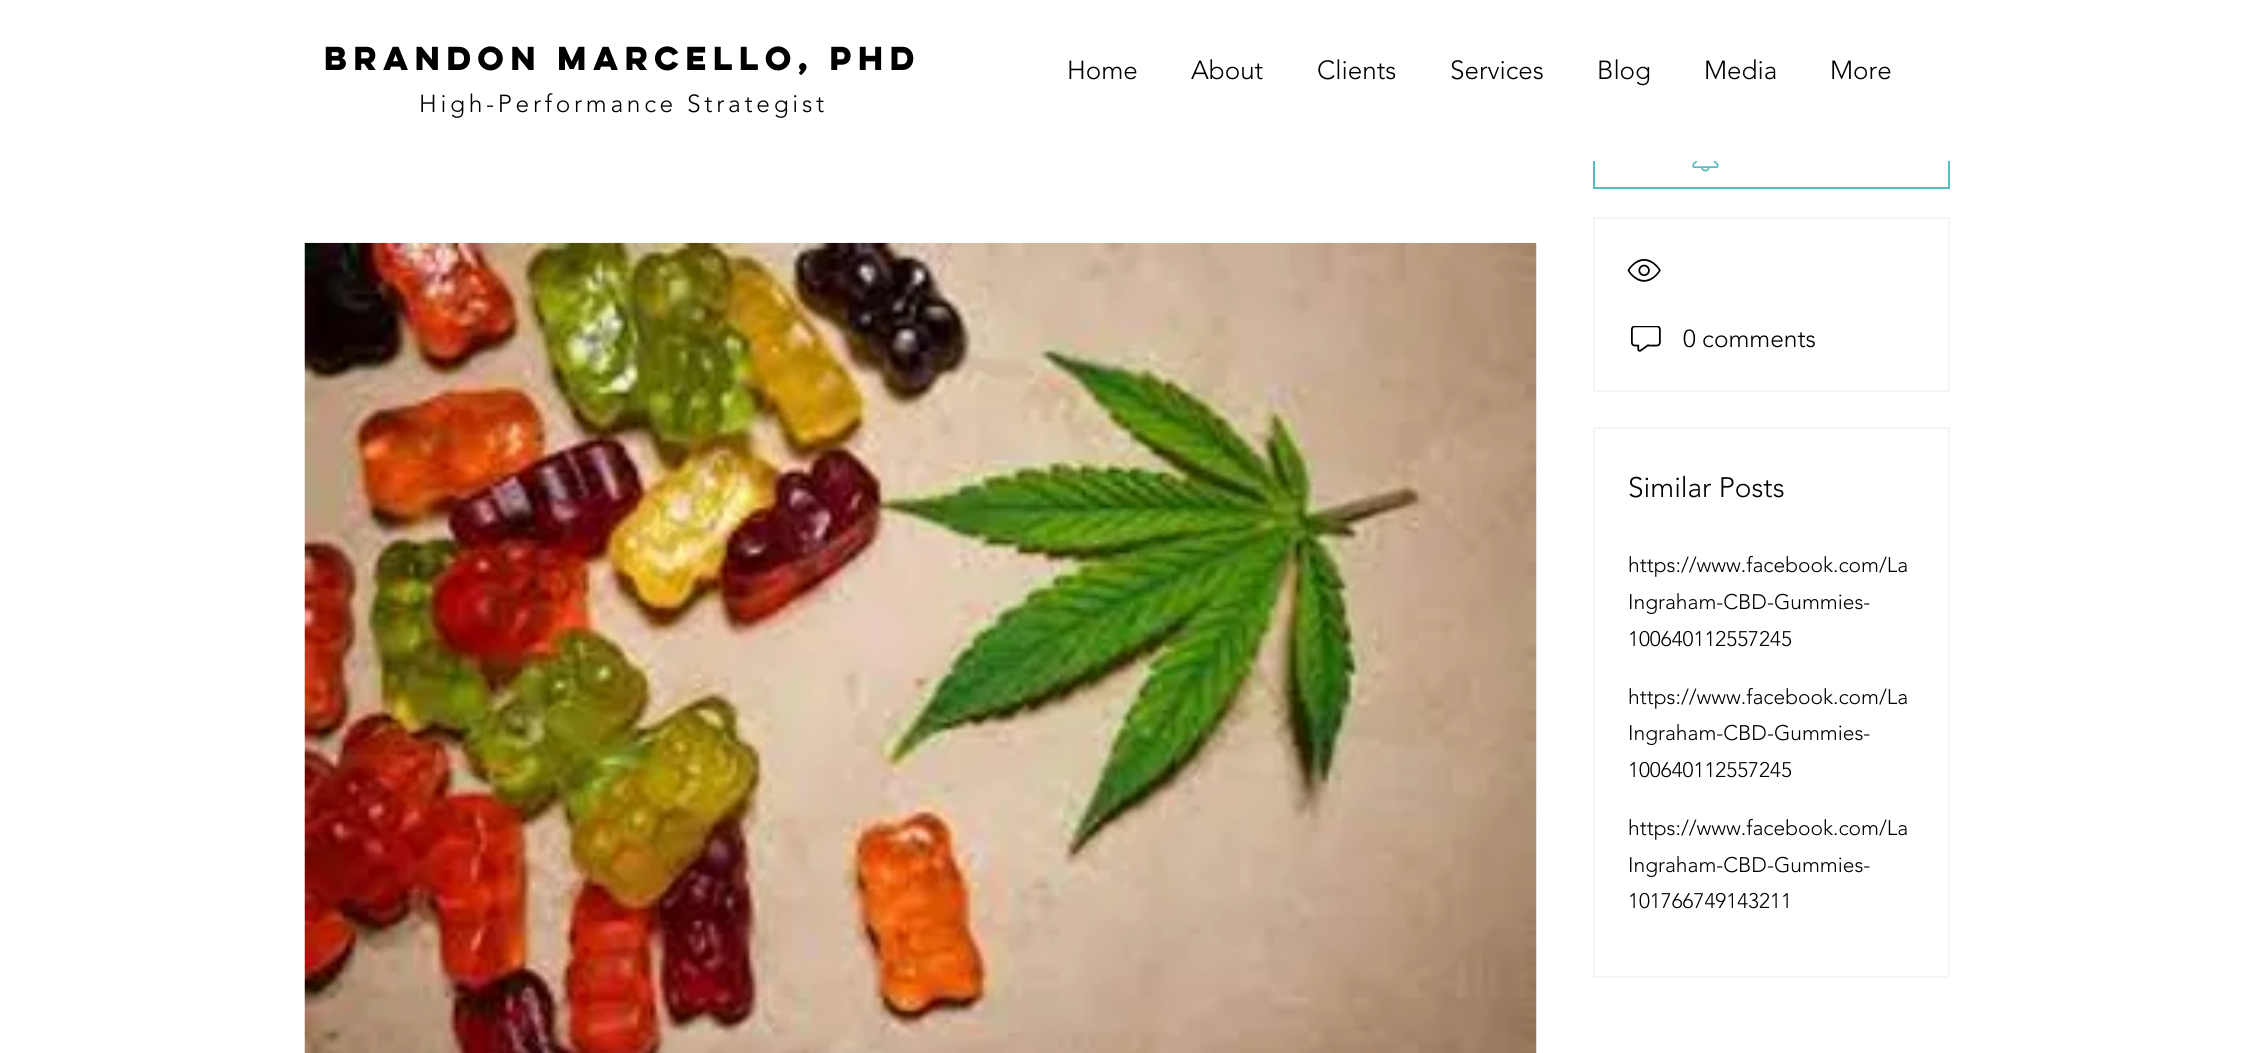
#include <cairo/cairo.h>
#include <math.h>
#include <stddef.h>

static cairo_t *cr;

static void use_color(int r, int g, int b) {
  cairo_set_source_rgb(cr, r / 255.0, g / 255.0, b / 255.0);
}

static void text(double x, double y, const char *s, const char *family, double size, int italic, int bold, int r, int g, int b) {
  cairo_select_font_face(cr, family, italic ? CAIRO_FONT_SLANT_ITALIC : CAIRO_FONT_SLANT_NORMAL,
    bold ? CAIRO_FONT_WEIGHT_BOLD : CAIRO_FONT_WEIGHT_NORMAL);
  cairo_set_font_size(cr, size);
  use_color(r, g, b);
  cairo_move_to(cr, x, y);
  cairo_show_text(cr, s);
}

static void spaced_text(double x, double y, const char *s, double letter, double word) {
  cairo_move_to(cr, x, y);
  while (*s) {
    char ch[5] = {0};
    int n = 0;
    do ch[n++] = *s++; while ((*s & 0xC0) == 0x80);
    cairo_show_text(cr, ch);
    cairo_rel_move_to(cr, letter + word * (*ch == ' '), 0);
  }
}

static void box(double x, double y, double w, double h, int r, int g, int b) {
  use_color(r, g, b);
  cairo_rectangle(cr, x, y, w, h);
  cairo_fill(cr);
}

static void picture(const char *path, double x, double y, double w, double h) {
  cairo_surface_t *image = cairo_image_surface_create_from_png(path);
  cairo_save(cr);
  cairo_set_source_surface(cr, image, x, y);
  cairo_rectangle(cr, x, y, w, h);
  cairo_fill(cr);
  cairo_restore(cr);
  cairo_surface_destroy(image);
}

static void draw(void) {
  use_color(255, 255, 255);
  cairo_paint(cr);
  cairo_rectangle(cr, 1594, 127, 355, 61);
  use_color(87, 187, 191);
  cairo_stroke(cr);
  box(1593, 126, 357, 35, 255, 255, 255);
  picture("img_01.png", 304, 242, 1233, 811);
  picture("img_02.png", 1692, 161, 27, 11);
  cairo_rectangle(cr, 1594, 218, 355, 173);
  use_color(245, 245, 245);
  cairo_stroke(cr);
  picture("img_03.png", 1627, 259, 34, 23);
  picture("img_04.png", 1631, 326, 30, 26);
  cairo_rectangle(cr, 1594, 428, 355, 549);
  cairo_stroke(cr);
  text(324, 70, "BRANDON MARCELLO, PhD", "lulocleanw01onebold", 29.75, 0, 1, 0, 0, 0);
  text(1067, 79, "Home", "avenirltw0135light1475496 Light", 26, 0, 0, 0, 0, 0);
  text(1191, 79, "About", "avenirltw0135light1475496 Light", 26, 0, 0, 0, 0, 0);
  text(1317, 79, "Clients", "avenirltw0135light1475496 Light", 26, 0, 0, 0, 0, 0);
  text(1450, 79, "Services", "avenirltw0135light1475496 Light", 26, 0, 0, 0, 0, 0);
  text(1597, 79, "Blog", "avenirltw0135light1475496 Light", 26, 0, 0, 0, 0, 0);
  text(1704, 79, "Media", "avenirltw0135light1475496 Light", 26, 0, 0, 0, 0, 0);
  text(1830, 79, "More", "avenirltw0135light1475496 Light", 26, 0, 0, 0, 0, 0);
  cairo_set_font_size(cr, 24.5);
  spaced_text(419, 112, "High-Performance Strategist", 3.7, 0);
  text(1683, 347, "0 comments", "avenirltw0135light1475496 Light", 24.5, 0, 0, 0, 0, 0);
  text(1628, 497, "Similar Posts", "avenirltw0135light1475496 Light", 28, 0, 0, 0, 0, 0);
  text(1628, 572, "https://www.facebook.com/La", "avenirltw0135light1475496 Light", 21, 0, 0, 0, 0, 0);
  text(1628, 609, "Ingraham-CBD-Gummies-", "avenirltw0135light1475496 Light", 21, 0, 0, 0, 0, 0);
  text(1628, 646, "100640112557245", "avenirltw0135light1475496 Light", 21, 0, 0, 0, 0, 0);
  text(1628, 704, "https://www.facebook.com/La", "avenirltw0135light1475496 Light", 21, 0, 0, 0, 0, 0);
  text(1628, 740, "Ingraham-CBD-Gummies-", "avenirltw0135light1475496 Light", 21, 0, 0, 0, 0, 0);
  text(1628, 777, "100640112557245", "avenirltw0135light1475496 Light", 21, 0, 0, 0, 0, 0);
  text(1628, 835, "https://www.facebook.com/La", "avenirltw0135light1475496 Light", 21, 0, 0, 0, 0, 0);
  text(1628, 872, "Ingraham-CBD-Gummies-", "avenirltw0135light1475496 Light", 21, 0, 0, 0, 0, 0);
  text(1628, 908, "101766749143211", "avenirltw0135light1475496 Light", 21, 0, 0, 0, 0, 0);
}

int main(void) {
  cairo_surface_t *surface = cairo_image_surface_create(CAIRO_FORMAT_RGB24, 2251, 1053);
  cr = cairo_create(surface);
  cairo_font_options_t *options = cairo_font_options_create();
  cairo_font_options_set_hint_metrics(options, CAIRO_HINT_METRICS_OFF);
  cairo_font_options_set_hint_style(options, CAIRO_HINT_STYLE_NONE);
  cairo_set_font_options(cr, options);
  cairo_set_miter_limit(cr, 4);
  draw();
  cairo_surface_write_to_png(surface, "out.png");
  cairo_font_options_destroy(options);
  cairo_destroy(cr);
  cairo_surface_destroy(surface);
  return 0;
}
